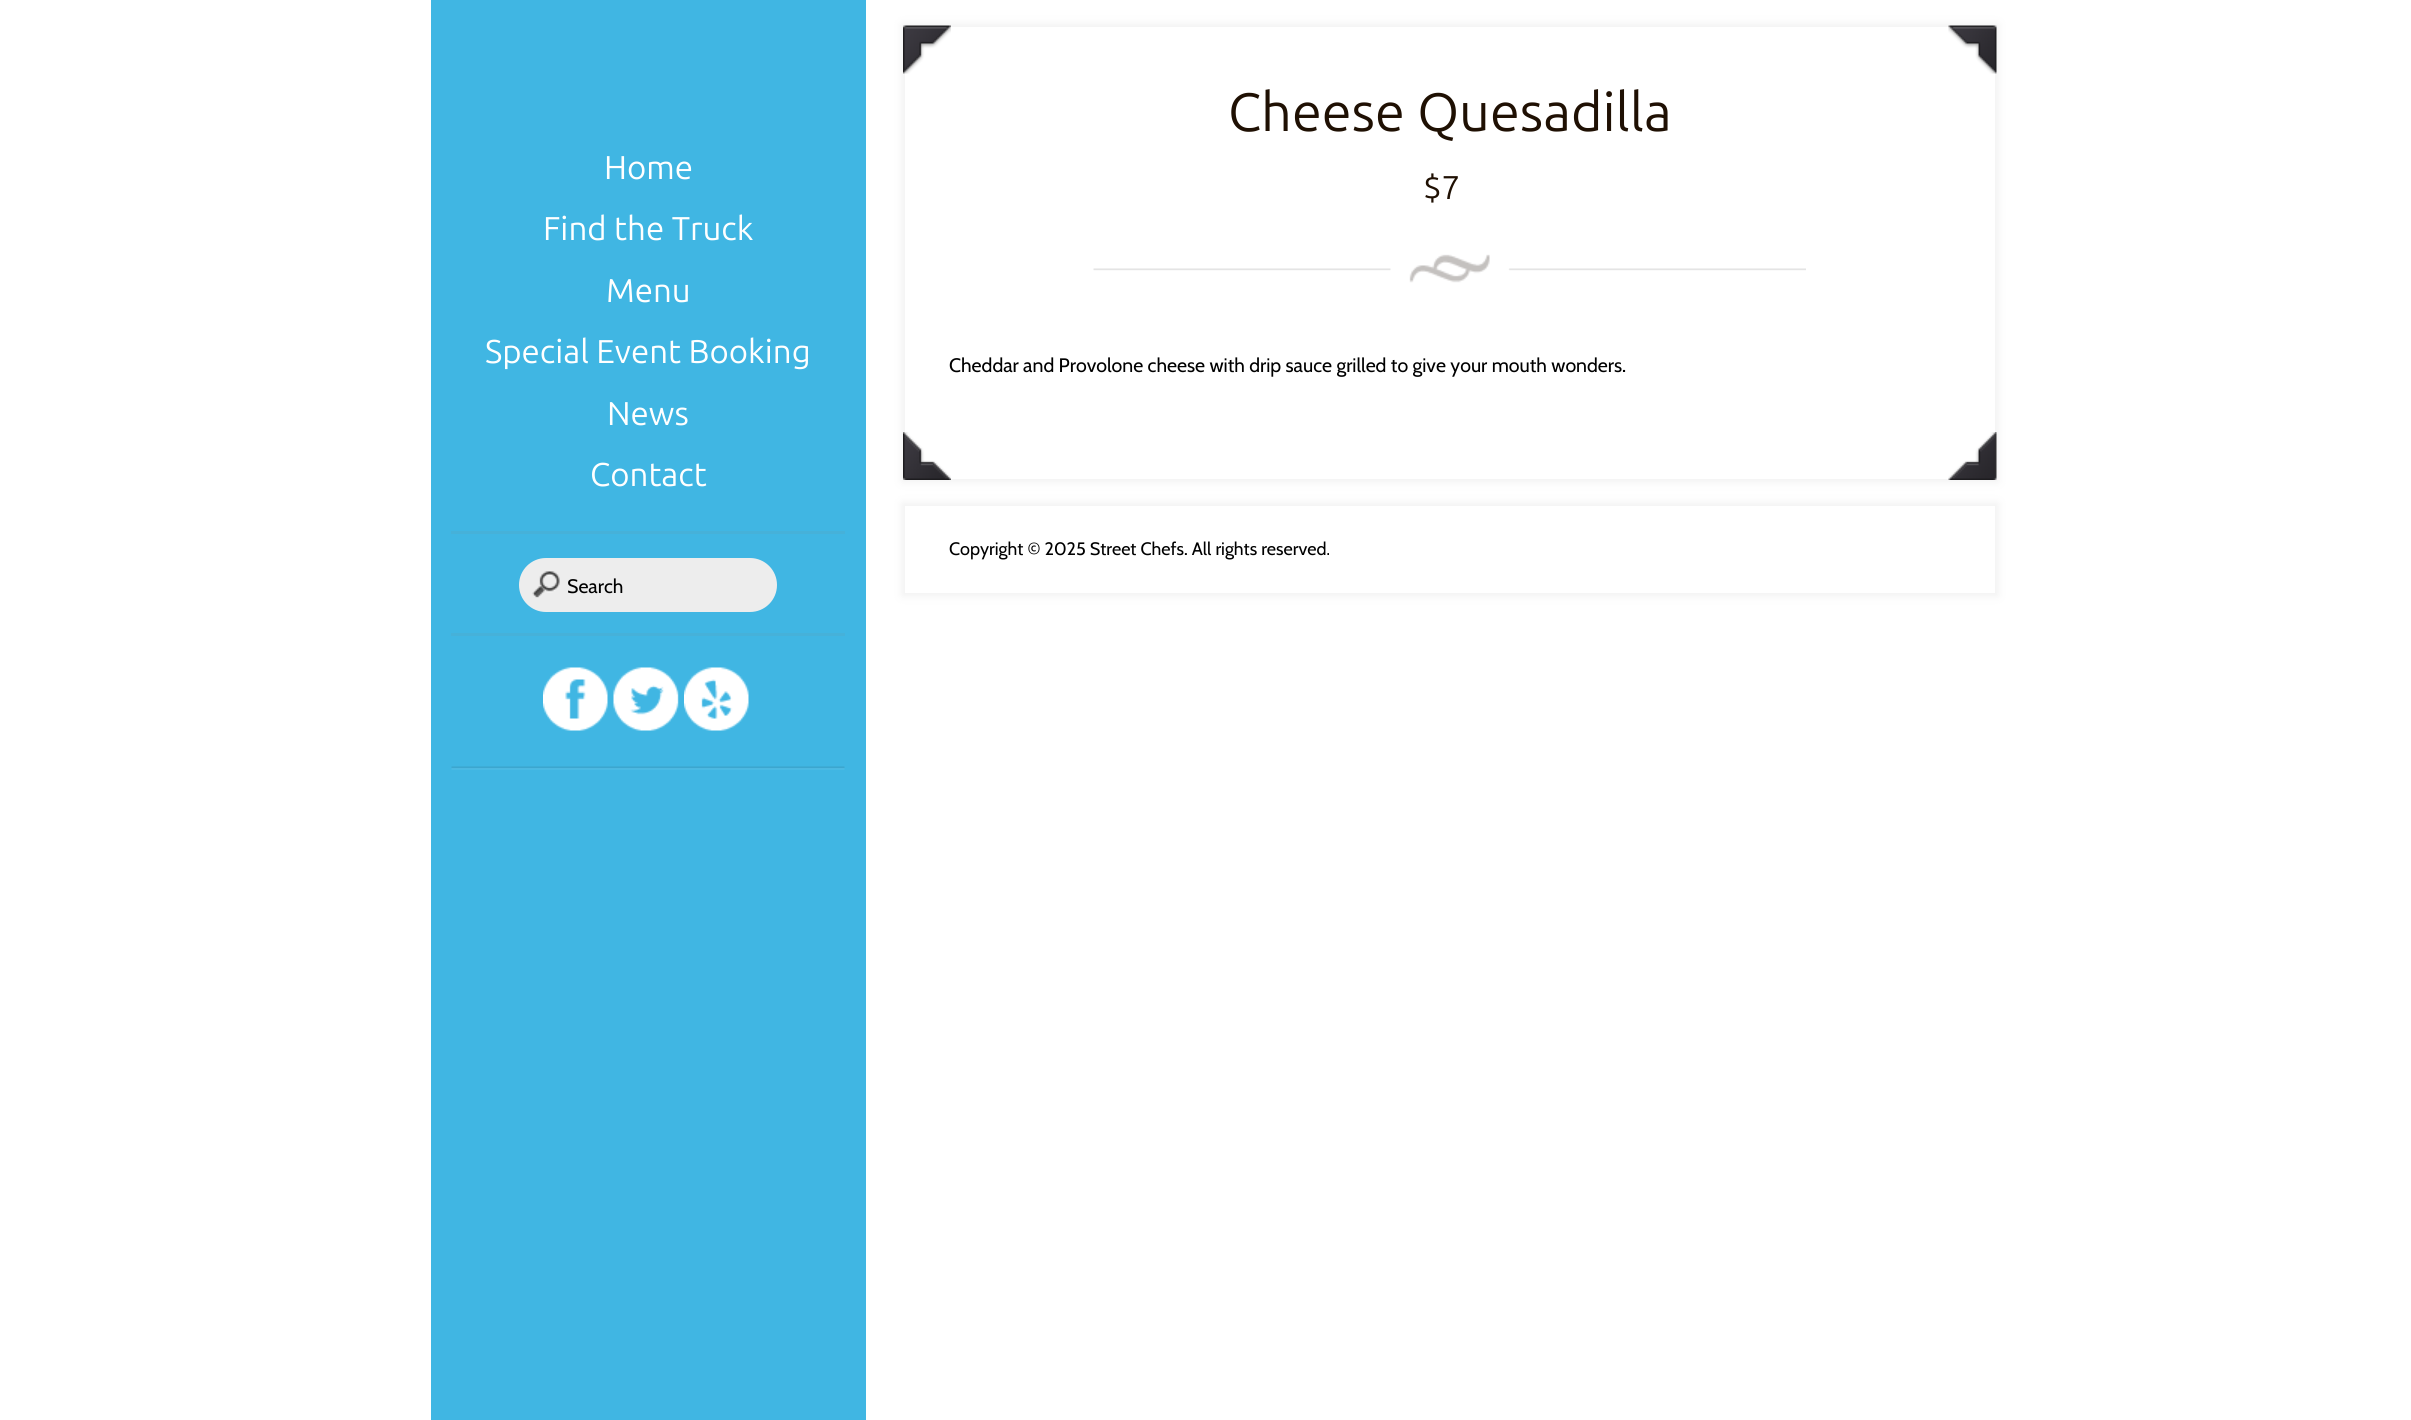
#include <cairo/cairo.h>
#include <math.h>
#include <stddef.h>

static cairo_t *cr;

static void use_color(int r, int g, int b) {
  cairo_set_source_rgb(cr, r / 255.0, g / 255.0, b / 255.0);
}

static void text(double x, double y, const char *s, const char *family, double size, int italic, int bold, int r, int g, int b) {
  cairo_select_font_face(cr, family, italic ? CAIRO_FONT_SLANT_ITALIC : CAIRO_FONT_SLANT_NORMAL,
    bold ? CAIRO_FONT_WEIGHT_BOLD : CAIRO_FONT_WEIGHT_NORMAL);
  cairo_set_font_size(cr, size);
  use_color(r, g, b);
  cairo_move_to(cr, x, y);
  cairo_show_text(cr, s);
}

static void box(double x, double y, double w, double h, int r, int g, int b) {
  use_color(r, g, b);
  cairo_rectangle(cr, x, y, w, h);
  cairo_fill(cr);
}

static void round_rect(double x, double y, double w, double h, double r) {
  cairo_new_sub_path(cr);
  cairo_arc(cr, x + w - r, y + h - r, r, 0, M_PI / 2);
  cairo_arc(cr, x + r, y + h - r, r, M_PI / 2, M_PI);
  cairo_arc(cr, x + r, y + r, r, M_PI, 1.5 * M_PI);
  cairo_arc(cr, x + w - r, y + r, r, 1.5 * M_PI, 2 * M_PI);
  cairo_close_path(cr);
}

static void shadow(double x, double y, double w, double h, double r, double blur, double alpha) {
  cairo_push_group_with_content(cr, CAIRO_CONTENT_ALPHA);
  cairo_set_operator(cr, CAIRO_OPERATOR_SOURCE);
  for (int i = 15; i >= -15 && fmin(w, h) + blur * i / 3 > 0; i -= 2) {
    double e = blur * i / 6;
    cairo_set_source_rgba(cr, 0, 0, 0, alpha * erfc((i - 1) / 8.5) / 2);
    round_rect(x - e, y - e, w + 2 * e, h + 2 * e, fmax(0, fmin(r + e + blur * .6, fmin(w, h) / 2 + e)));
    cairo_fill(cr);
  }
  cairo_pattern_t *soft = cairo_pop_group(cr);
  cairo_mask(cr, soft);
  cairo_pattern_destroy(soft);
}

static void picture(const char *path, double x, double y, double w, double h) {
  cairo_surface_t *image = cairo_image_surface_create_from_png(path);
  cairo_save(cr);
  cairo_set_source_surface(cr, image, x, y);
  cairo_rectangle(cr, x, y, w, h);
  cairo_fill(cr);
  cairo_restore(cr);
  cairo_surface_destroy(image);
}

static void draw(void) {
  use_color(255, 255, 255);
  cairo_paint(cr);
  box(431, 0, 435, 1420, 64, 182, 227);
  box(451, 531, 394, 3, 70, 177, 217);
  box(451, 633, 394, 3, 70, 177, 217);
  use_color(237, 237, 237);
  round_rect(519, 558, 258, 54, 27);
  cairo_fill(cr);
  picture("img_01.png", 532, 571, 28, 27);
  picture("img_02.png", 451, 766, 394, 4);
  picture("img_03.png", 543, 667, 65, 64);
  picture("img_04.png", 613, 667, 66, 64);
  picture("img_05.png", 684, 667, 65, 64);
  use_color(184, 184, 184);
  shadow(902, 24, 1096, 458, 0, 4.5, 0.2);
  box(905, 27, 1090, 452, 255, 255, 255);
  picture("img_06.png", 903, 25, 48, 49);
  picture("img_07.png", 1948, 25, 49, 49);
  picture("img_08.png", 1093, 254, 713, 29);
  picture("img_09.png", 903, 432, 48, 48);
  picture("img_10.png", 1948, 432, 49, 48);
  use_color(184, 184, 184);
  shadow(902, 503, 1096, 93, 0, 4.5, 0.2);
  box(905, 506, 1090, 87, 255, 255, 255);
  text(604, 179, "Home", "Ubuntu", 33, 0, 0, 255, 255, 255);
  text(543, 240, "Find the Truck", "Ubuntu", 33, 0, 0, 255, 255, 255);
  text(606, 302, "Menu", "Ubuntu", 33, 0, 0, 255, 255, 255);
  text(485, 363, "Special Event Booking", "Ubuntu", 33, 0, 0, 255, 255, 255);
  text(607, 425, "News", "Ubuntu", 33, 0, 0, 255, 255, 255);
  text(590, 486, "Contact", "Ubuntu", 33, 0, 0, 255, 255, 255);
  text(567, 593, "Search", "Cabin", 19.5, 0, 0, 0, 0, 0);
  text(1228, 131, "Cheese Quesadilla", "Ubuntu", 54, 0, 0, 31, 16, 3);
  text(1423, 199, "$7", "Ubuntu", 33, 0, 0, 31, 16, 3);
  text(949, 372, "Cheddar and Provolone cheese with drip sauce grilled to give your mouth wonders.", "Cabin", 19.5, 0, 0, 0, 0, 0);
  text(949, 555, "Copyright © 2025 Street Chefs. All rights reserved.", "Cabin", 18, 0, 0, 0, 0, 0);
}

int main(void) {
  cairo_surface_t *surface = cairo_image_surface_create(CAIRO_FORMAT_RGB24, 2411, 1420);
  cr = cairo_create(surface);
  cairo_font_options_t *options = cairo_font_options_create();
  cairo_font_options_set_hint_metrics(options, CAIRO_HINT_METRICS_OFF);
  cairo_font_options_set_hint_style(options, CAIRO_HINT_STYLE_NONE);
  cairo_set_font_options(cr, options);
  cairo_set_miter_limit(cr, 4);
  draw();
  cairo_surface_write_to_png(surface, "out.png");
  cairo_font_options_destroy(options);
  cairo_destroy(cr);
  cairo_surface_destroy(surface);
  return 0;
}
